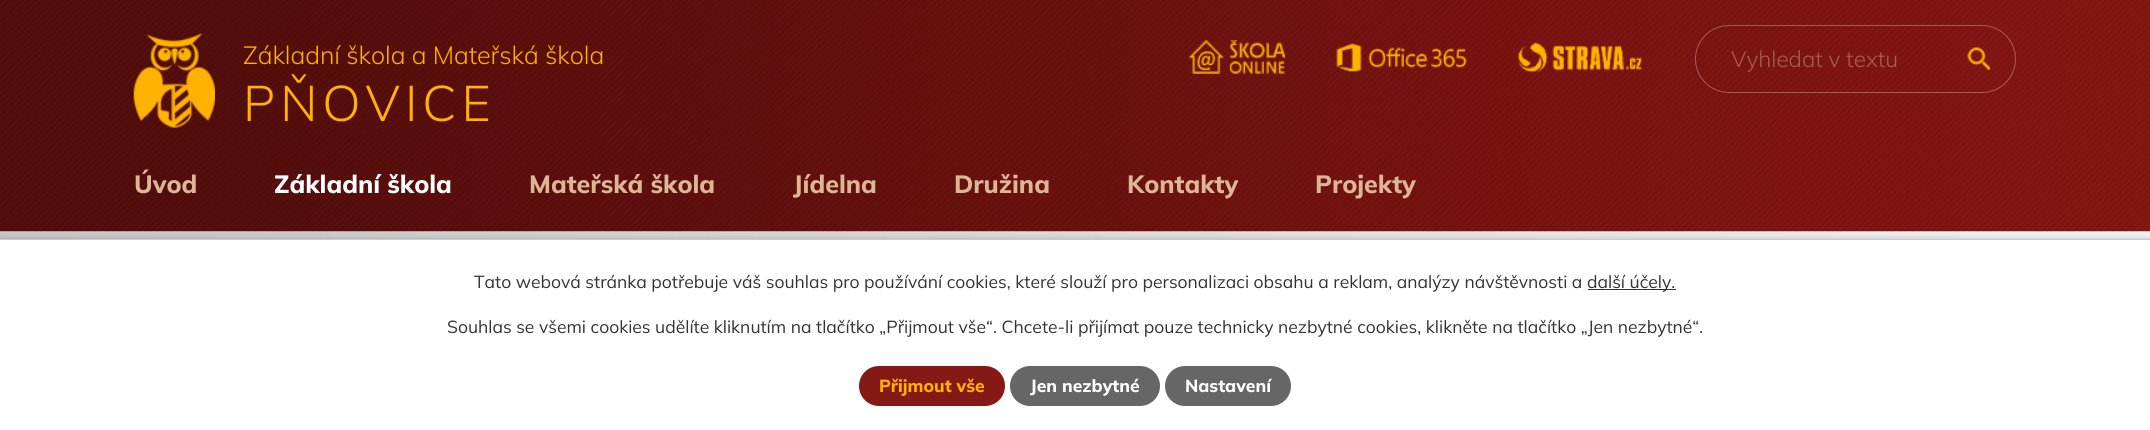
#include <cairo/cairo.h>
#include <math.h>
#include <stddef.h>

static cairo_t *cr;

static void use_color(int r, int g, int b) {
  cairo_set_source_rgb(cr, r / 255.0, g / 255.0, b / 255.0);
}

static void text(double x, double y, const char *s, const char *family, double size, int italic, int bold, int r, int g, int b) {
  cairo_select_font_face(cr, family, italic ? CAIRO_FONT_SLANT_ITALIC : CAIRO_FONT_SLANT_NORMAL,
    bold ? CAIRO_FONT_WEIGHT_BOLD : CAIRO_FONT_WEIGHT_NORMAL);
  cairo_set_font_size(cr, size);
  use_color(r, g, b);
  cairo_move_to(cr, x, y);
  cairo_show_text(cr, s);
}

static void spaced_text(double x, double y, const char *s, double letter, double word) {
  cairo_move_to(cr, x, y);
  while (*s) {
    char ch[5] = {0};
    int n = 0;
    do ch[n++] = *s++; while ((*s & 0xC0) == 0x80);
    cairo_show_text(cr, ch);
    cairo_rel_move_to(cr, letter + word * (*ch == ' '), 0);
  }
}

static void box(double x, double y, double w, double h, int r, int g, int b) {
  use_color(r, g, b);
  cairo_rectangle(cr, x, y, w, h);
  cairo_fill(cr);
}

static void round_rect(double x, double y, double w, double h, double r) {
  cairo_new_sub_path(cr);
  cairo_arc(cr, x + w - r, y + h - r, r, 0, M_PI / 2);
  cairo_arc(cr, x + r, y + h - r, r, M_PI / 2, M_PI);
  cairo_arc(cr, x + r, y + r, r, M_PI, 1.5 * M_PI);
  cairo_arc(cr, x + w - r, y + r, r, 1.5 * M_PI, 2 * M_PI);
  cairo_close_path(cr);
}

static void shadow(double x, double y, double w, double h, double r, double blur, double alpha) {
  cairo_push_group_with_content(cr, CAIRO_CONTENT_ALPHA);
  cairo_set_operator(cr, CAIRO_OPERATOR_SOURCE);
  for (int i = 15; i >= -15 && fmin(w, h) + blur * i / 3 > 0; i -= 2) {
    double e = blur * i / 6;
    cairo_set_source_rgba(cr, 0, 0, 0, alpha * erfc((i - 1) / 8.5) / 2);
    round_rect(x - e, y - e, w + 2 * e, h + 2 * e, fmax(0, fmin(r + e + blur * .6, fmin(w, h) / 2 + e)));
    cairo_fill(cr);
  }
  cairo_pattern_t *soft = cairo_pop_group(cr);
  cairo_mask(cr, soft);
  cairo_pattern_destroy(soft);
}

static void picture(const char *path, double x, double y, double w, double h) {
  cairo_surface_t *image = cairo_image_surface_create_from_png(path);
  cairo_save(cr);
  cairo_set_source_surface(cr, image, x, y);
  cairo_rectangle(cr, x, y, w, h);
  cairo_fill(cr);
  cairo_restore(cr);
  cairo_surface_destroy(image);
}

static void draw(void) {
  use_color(242, 242, 242);
  cairo_paint(cr);
  picture("img_07.png", 0, 231, 1960, 8);
  picture("img_01.png", 0, 0, 2150, 232);
  picture("img_02.png", 133, 33, 82, 95);
  picture("img_03.png", 1188, 40, 97, 34);
  picture("img_04.png", 1336, 43, 131, 29);
  picture("img_05.png", 1517, 42, 125, 31);
  round_rect(1695.5, 25.5, 320, 67, 33.5);
  cairo_set_source_rgba(cr, 1, 1, 1, 0.3);
  cairo_set_line_width(cr, 1);
  cairo_stroke(cr);
  picture("img_06.png", 1967, 47, 23, 23);
  use_color(0, 0, 0);
  shadow(0, 239, 2150, 191, 0, 3, 0.2);
  box(0, 240, 2150, 190, 255, 255, 255);
  box(0, 239, 2150, 1, 204, 204, 204);
  box(1588, 289, 88, 1, 51, 51, 51);
  use_color(132, 25, 22);
  round_rect(859, 366, 146, 40, 20);
  cairo_fill(cr);
  use_color(102, 102, 102);
  round_rect(1010, 366, 150, 40, 20);
  cairo_fill(cr);
  round_rect(1165, 366, 126, 40, 20);
  cairo_fill(cr);
  cairo_select_font_face(cr, "Mulish Light", CAIRO_FONT_SLANT_NORMAL, CAIRO_FONT_WEIGHT_NORMAL);
  cairo_set_font_size(cr, 25);
  use_color(255, 178, 0);
  spaced_text(243, 64, "Základní škola a Mateřská škola", -0.05, 0);
  cairo_set_font_size(cr, 50);
  spaced_text(243, 121, "PŇOVICE", 5, 0);
  text(1731, 67, "Vyhledat v textu", "Mulish Light", 22.5, 0, 0, 164, 91, 89);
  text(134, 193, "Úvod", "Mulish ExtraBold", 25, 0, 0, 222, 182, 150);
  text(274, 193, "Základní škola", "Mulish ExtraBold", 25, 0, 0, 255, 255, 255);
  text(529, 193, "Mateřská škola", "Mulish ExtraBold", 25, 0, 0, 222, 182, 150);
  text(793, 193, "Jídelna", "Mulish ExtraBold", 25, 0, 0, 222, 182, 150);
  text(954, 193, "Družina", "Mulish ExtraBold", 25, 0, 0, 222, 182, 150);
  text(1127, 193, "Kontakty", "Mulish ExtraBold", 25, 0, 0, 222, 182, 150);
  text(1315, 193, "Projekty", "Mulish ExtraBold", 25, 0, 0, 222, 182, 150);
  text(474, 288, "Tato webová stránka potřebuje váš souhlas pro používání cookies, které slouží pro personalizaci obsahu a reklam, analýzy návštěvnosti a", "Mulish", 17.5, 0, 0, 51, 51, 51);
  text(1587, 288, "další účely.", "Mulish", 17.5, 0, 0, 51, 51, 51);
  text(447, 333, "Souhlas se všemi cookies udělíte kliknutím na tlačítko „Přijmout vše“. Chcete-li přijímat pouze technicky nezbytné cookies, klikněte na tlačítko „Jen nezbytné“.", "Mulish", 17.5, 0, 0, 51, 51, 51);
  text(879, 392, "Přijmout vše", "Mulish ExtraBold", 17.5, 0, 0, 255, 178, 0);
  text(1030, 392, "Jen nezbytné", "Mulish ExtraBold", 17.5, 0, 0, 255, 255, 255);
  text(1185, 392, "Nastavení", "Mulish ExtraBold", 17.5, 0, 0, 255, 255, 255);
}

int main(void) {
  cairo_surface_t *surface = cairo_image_surface_create(CAIRO_FORMAT_RGB24, 2150, 430);
  cr = cairo_create(surface);
  cairo_font_options_t *options = cairo_font_options_create();
  cairo_font_options_set_hint_metrics(options, CAIRO_HINT_METRICS_OFF);
  cairo_font_options_set_hint_style(options, CAIRO_HINT_STYLE_NONE);
  cairo_set_font_options(cr, options);
  cairo_set_miter_limit(cr, 4);
  draw();
  cairo_surface_write_to_png(surface, "out.png");
  cairo_font_options_destroy(options);
  cairo_destroy(cr);
  cairo_surface_destroy(surface);
  return 0;
}
